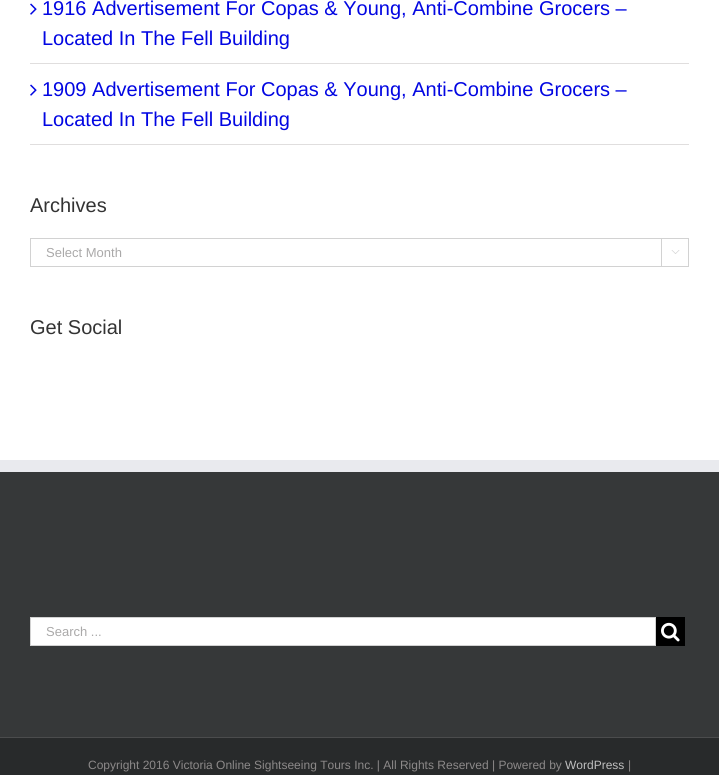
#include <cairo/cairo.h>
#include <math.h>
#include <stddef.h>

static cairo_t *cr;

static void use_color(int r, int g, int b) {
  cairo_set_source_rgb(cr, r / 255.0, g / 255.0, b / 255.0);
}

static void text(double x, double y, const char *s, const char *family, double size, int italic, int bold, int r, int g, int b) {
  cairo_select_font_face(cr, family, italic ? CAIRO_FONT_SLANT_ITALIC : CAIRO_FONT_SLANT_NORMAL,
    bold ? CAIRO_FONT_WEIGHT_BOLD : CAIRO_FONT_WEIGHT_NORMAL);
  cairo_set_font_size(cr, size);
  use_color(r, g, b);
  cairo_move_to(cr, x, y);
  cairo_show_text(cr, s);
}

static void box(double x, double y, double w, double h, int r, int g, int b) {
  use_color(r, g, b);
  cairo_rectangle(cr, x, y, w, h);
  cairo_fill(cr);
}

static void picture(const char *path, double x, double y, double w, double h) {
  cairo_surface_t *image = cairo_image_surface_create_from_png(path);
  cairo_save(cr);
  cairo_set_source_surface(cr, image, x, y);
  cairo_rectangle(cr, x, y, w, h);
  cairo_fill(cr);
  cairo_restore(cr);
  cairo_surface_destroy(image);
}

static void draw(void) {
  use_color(255, 255, 255);
  cairo_paint(cr);
  box(30, 63, 659, 1, 224, 222, 222);
  picture("img_01.png", 30, 3, 7, 12);
  box(30, 144, 659, 1, 224, 222, 222);
  picture("img_01.png", 30, 84, 7, 12);
  cairo_rectangle(cr, 30.5, 238.5, 658, 28);
  use_color(210, 210, 210);
  cairo_set_line_width(cr, 1);
  cairo_stroke(cr);
  box(661, 239, 1, 27, 210, 210, 210);
  picture("img_02.png", 671, 250, 9, 4);
  box(0, 472, 719, 265, 54, 56, 57);
  box(0, 460, 719, 12, 233, 234, 238);
  use_color(255, 255, 255);
  cairo_rectangle(cr, 30.5, 617.5, 625, 28);
  cairo_fill_preserve(cr);
  use_color(210, 210, 210);
  cairo_stroke(cr);
  box(656, 617, 29, 29, 0, 0, 0);
  picture("img_03.png", 661, 622, 19, 20);
  box(0, 738, 719, 37, 40, 42, 43);
  box(0, 737, 719, 1, 75, 76, 77);
  text(42, 15, "1916 Advertisement For Copas & Young, Anti-Combine Grocers –", "Liberation Sans", 20, 0, 0, 2, 6, 226);
  text(42, 45, "Located In The Fell Building", "Liberation Sans", 20, 0, 0, 2, 6, 226);
  text(42, 96, "1909 Advertisement For Copas & Young, Anti-Combine Grocers –", "Liberation Sans", 20, 0, 0, 2, 6, 226);
  text(42, 126, "Located In The Fell Building", "Liberation Sans", 20, 0, 0, 2, 6, 226);
  text(30, 212, "Archives", "Liberation Sans", 20, 0, 0, 51, 51, 51);
  text(46, 257, "Select Month", "Liberation Sans", 13, 0, 0, 170, 169, 169);
  text(30, 334, "Get Social", "Liberation Sans", 20, 0, 0, 51, 51, 51);
  text(46, 636, "Search ...", "Liberation Sans", 13, 0, 0, 170, 169, 169);
  text(88, 769, "Copyright 2016 Victoria Online Sightseeing Tours Inc. | All Rights Reserved | Powered by", "Liberation Sans", 12, 0, 0, 140, 137, 137);
  text(565, 769, "WordPress", "Liberation Sans", 12, 0, 0, 191, 191, 191);
  text(628, 769, "|", "Liberation Sans", 12, 0, 0, 140, 137, 137);
}

int main(void) {
  cairo_surface_t *surface = cairo_image_surface_create(CAIRO_FORMAT_RGB24, 719, 775);
  cr = cairo_create(surface);
  cairo_font_options_t *options = cairo_font_options_create();
  cairo_font_options_set_hint_metrics(options, CAIRO_HINT_METRICS_OFF);
  cairo_font_options_set_hint_style(options, CAIRO_HINT_STYLE_NONE);
  cairo_set_font_options(cr, options);
  cairo_set_miter_limit(cr, 4);
  draw();
  cairo_surface_write_to_png(surface, "out.png");
  cairo_font_options_destroy(options);
  cairo_destroy(cr);
  cairo_surface_destroy(surface);
  return 0;
}
